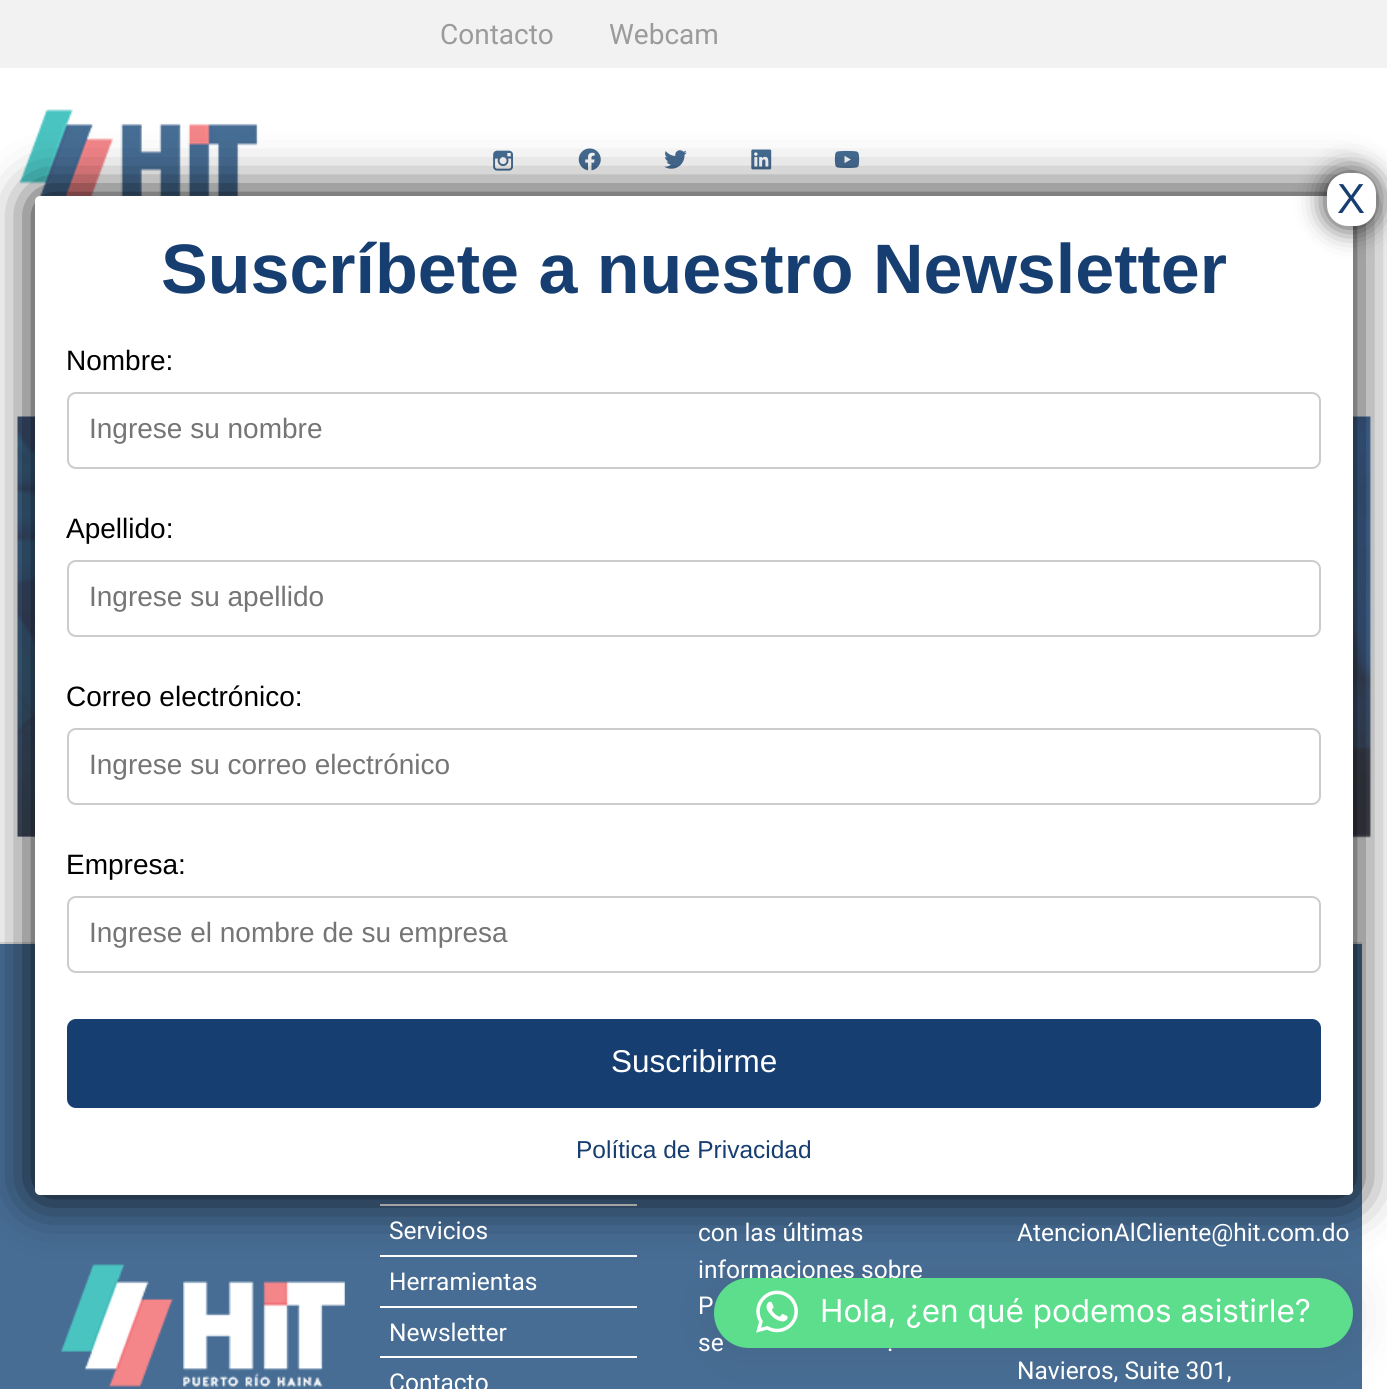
#include <cairo/cairo.h>
#include <math.h>
#include <stddef.h>

static cairo_t *cr;

static void use_color(int r, int g, int b) {
  cairo_set_source_rgb(cr, r / 255.0, g / 255.0, b / 255.0);
}

static void text(double x, double y, const char *s, const char *family, double size, int italic, int bold, int r, int g, int b) {
  cairo_select_font_face(cr, family, italic ? CAIRO_FONT_SLANT_ITALIC : CAIRO_FONT_SLANT_NORMAL,
    bold ? CAIRO_FONT_WEIGHT_BOLD : CAIRO_FONT_WEIGHT_NORMAL);
  cairo_set_font_size(cr, size);
  use_color(r, g, b);
  cairo_move_to(cr, x, y);
  cairo_show_text(cr, s);
}

static void box(double x, double y, double w, double h, int r, int g, int b) {
  use_color(r, g, b);
  cairo_rectangle(cr, x, y, w, h);
  cairo_fill(cr);
}

static void round_rect(double x, double y, double w, double h, double r) {
  cairo_new_sub_path(cr);
  cairo_arc(cr, x + w - r, y + h - r, r, 0, M_PI / 2);
  cairo_arc(cr, x + r, y + h - r, r, M_PI / 2, M_PI);
  cairo_arc(cr, x + r, y + r, r, M_PI, 1.5 * M_PI);
  cairo_arc(cr, x + w - r, y + r, r, 1.5 * M_PI, 2 * M_PI);
  cairo_close_path(cr);
}

static void shadow(double x, double y, double w, double h, double r, double blur, double alpha) {
  cairo_push_group_with_content(cr, CAIRO_CONTENT_ALPHA);
  cairo_set_operator(cr, CAIRO_OPERATOR_SOURCE);
  for (int i = 15; i >= -15 && fmin(w, h) + blur * i / 3 > 0; i -= 2) {
    double e = blur * i / 6;
    cairo_set_source_rgba(cr, 0, 0, 0, alpha * erfc((i - 1) / 8.5) / 2);
    round_rect(x - e, y - e, w + 2 * e, h + 2 * e, fmax(0, fmin(r + e + blur * .6, fmin(w, h) / 2 + e)));
    cairo_fill(cr);
  }
  cairo_pattern_t *soft = cairo_pop_group(cr);
  cairo_mask(cr, soft);
  cairo_pattern_destroy(soft);
}

static void picture(const char *path, double x, double y, double w, double h) {
  cairo_surface_t *image = cairo_image_surface_create_from_png(path);
  cairo_save(cr);
  cairo_set_source_surface(cr, image, x, y);
  cairo_rectangle(cr, x, y, w, h);
  cairo_fill(cr);
  cairo_restore(cr);
  cairo_surface_destroy(image);
}

static void draw(void) {
  use_color(255, 255, 255);
  cairo_paint(cr);
  box(1353, 417, 17, 420, 209, 209, 218);
  box(18, 836, 17, 1, 209, 209, 218);
  box(0, 0, 1387, 68, 242, 242, 242);
  picture("img_01.png", 19, 109, 239, 88);
  picture("img_02.png", 493, 150, 20, 21);
  picture("img_03.png", 578, 148, 23, 23);
  picture("img_04.png", 664, 150, 23, 19);
  picture("img_05.png", 751, 149, 21, 21);
  picture("img_06.png", 834, 150, 26, 18);
  picture("img_07.png", 17, 416, 18, 421);
  picture("img_08.png", 1353, 416, 18, 422);
  box(0, 944, 1362, 445, 71, 109, 149);
  box(0, 942, 1362, 2, 224, 224, 224);
  picture("img_09.png", 61, 1264, 284, 123);
  box(380, 1204, 257, 2, 255, 255, 255);
  box(380, 1255, 257, 2, 255, 255, 255);
  box(380, 1306, 257, 2, 255, 255, 255);
  box(380, 1356, 257, 2, 255, 255, 255);
  use_color(2, 2, 2);
  shadow(35, 196, 1318, 999, 5, 26, 1);
  use_color(255, 255, 255);
  round_rect(35, 196, 1318, 999, 5);
  cairo_fill(cr);
  use_color(2, 2, 2);
  shadow(1325, 172, 52, 56, 23, 13, 0.75);
  use_color(255, 255, 255);
  round_rect(1327, 173, 49, 53, 21);
  cairo_fill(cr);
  round_rect(68, 393, 1252, 75, 8);
  use_color(204, 204, 204);
  cairo_stroke(cr);
  round_rect(68, 561, 1252, 75, 8);
  cairo_stroke(cr);
  round_rect(68, 729, 1252, 75, 8);
  cairo_stroke(cr);
  round_rect(68, 897, 1252, 75, 8);
  cairo_stroke(cr);
  use_color(22, 62, 112);
  round_rect(67, 1019, 1254, 89, 9);
  cairo_fill(cr);
  use_color(64, 64, 64);
  shadow(714, 1281, 639, 70, 35, 28, 0.16);
  text(440, 44, "Contacto", "Roboto", 28, 0, 0, 155, 155, 155);
  text(609, 44, "Webcam", "Roboto", 28, 0, 0, 155, 155, 155);
  text(389, 1239, "Servicios", "Roboto", 24.5, 0, 0, 255, 255, 255);
  text(389, 1290, "Herramientas", "Roboto", 24.5, 0, 0, 255, 255, 255);
  text(389, 1341, "Newsletter", "Roboto", 24.5, 0, 0, 255, 255, 255);
  text(389, 1391, "Contacto", "Roboto", 24.5, 0, 0, 255, 255, 255);
  text(698, 1241, "con las últimas", "Roboto", 24.5, 0, 0, 255, 255, 255);
  text(698, 1278, "informaciones sobre", "Roboto", 24.5, 0, 0, 255, 255, 255);
  text(698, 1314, "P", "Roboto", 24.5, 0, 0, 255, 255, 255);
  text(698, 1351, "se", "Roboto", 24.5, 0, 0, 255, 255, 255);
  text(887, 1351, ".", "Roboto", 24.5, 0, 0, 255, 255, 255);
  text(1017, 1241, "AtencionAlCliente@hit.com.do", "Roboto", 24.5, 0, 0, 255, 255, 255);
  text(1017, 1379, "Navieros, Suite 301,", "Roboto", 24.5, 0, 0, 255, 255, 255);
  text(1337, 213, "X", "Liberation Sans", 42, 0, 0, 22, 62, 112);
  text(161, 293, "Suscríbete a nuestro Newsletter", "Liberation Sans", 70, 0, 1, 22, 62, 112);
  text(66, 370, "Nombre:", "Liberation Sans", 28, 0, 0, 0, 0, 0);
  text(89, 438, "Ingrese su nombre", "Liberation Sans", 28, 0, 0, 117, 117, 117);
  text(66, 538, "Apellido:", "Liberation Sans", 28, 0, 0, 0, 0, 0);
  text(89, 606, "Ingrese su apellido", "Liberation Sans", 28, 0, 0, 117, 117, 117);
  text(66, 706, "Correo electrónico:", "Liberation Sans", 28, 0, 0, 0, 0, 0);
  text(89, 774, "Ingrese su correo electrónico", "Liberation Sans", 28, 0, 0, 117, 117, 117);
  text(66, 874, "Empresa:", "Liberation Sans", 28, 0, 0, 0, 0, 0);
  text(89, 942, "Ingrese el nombre de su empresa", "Liberation Sans", 28, 0, 0, 117, 117, 117);
  text(611, 1072, "Suscribirme", "Liberation Sans", 31.5, 0, 0, 255, 255, 255);
  text(576, 1158, "Política de Privacidad", "Liberation Sans", 24.5, 0, 0, 22, 62, 112);
  use_color(92, 222, 140);
  round_rect(714, 1278, 639, 70, 35);
  cairo_fill(cr);
  picture("img_10.png", 756, 1290, 42, 43);
  text(820, 1322, "Hola, ¿en qué podemos asistirle?", "Inter", 31.5, 0, 0, 255, 255, 255);
}

int main(void) {
  cairo_surface_t *surface = cairo_image_surface_create(CAIRO_FORMAT_RGB24, 1387, 1389);
  cr = cairo_create(surface);
  cairo_font_options_t *options = cairo_font_options_create();
  cairo_font_options_set_hint_metrics(options, CAIRO_HINT_METRICS_OFF);
  cairo_font_options_set_hint_style(options, CAIRO_HINT_STYLE_NONE);
  cairo_set_font_options(cr, options);
  cairo_set_miter_limit(cr, 4);
  draw();
  cairo_surface_write_to_png(surface, "out.png");
  cairo_font_options_destroy(options);
  cairo_destroy(cr);
  cairo_surface_destroy(surface);
  return 0;
}
